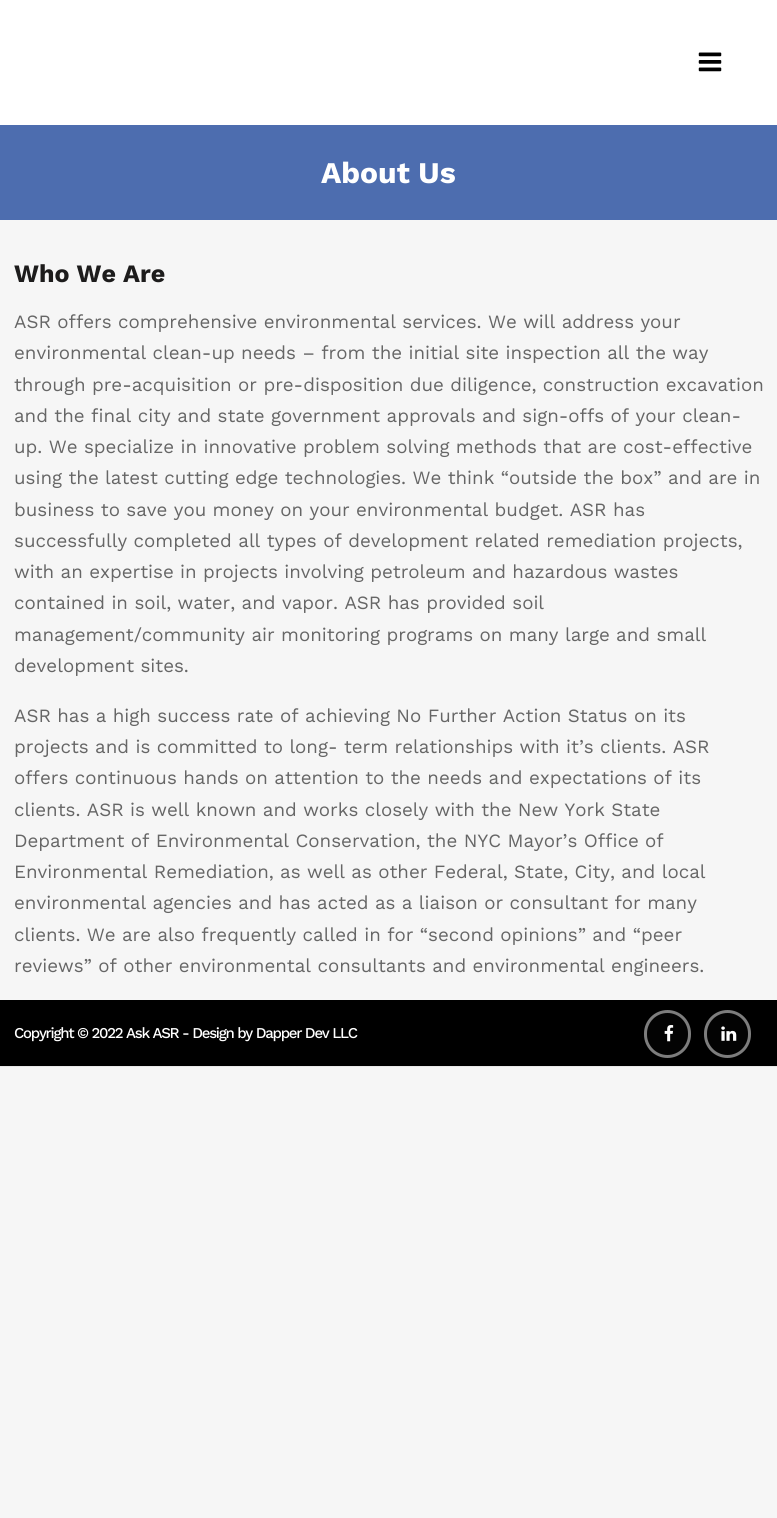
#include <cairo/cairo.h>
#include <math.h>
#include <stddef.h>

static cairo_t *cr;

static void use_color(int r, int g, int b) {
  cairo_set_source_rgb(cr, r / 255.0, g / 255.0, b / 255.0);
}

static void text(double x, double y, const char *s, const char *family, double size, int italic, int bold, int r, int g, int b) {
  cairo_select_font_face(cr, family, italic ? CAIRO_FONT_SLANT_ITALIC : CAIRO_FONT_SLANT_NORMAL,
    bold ? CAIRO_FONT_WEIGHT_BOLD : CAIRO_FONT_WEIGHT_NORMAL);
  cairo_set_font_size(cr, size);
  use_color(r, g, b);
  cairo_move_to(cr, x, y);
  cairo_show_text(cr, s);
}

static void spaced_text(double x, double y, const char *s, double letter, double word) {
  cairo_move_to(cr, x, y);
  while (*s) {
    char ch[5] = {0};
    int n = 0;
    do ch[n++] = *s++; while ((*s & 0xC0) == 0x80);
    cairo_show_text(cr, ch);
    cairo_rel_move_to(cr, letter + word * (*ch == ' '), 0);
  }
}

static void box(double x, double y, double w, double h, int r, int g, int b) {
  use_color(r, g, b);
  cairo_rectangle(cr, x, y, w, h);
  cairo_fill(cr);
}

static void round_rect(double x, double y, double w, double h, double r) {
  cairo_new_sub_path(cr);
  cairo_arc(cr, x + w - r, y + h - r, r, 0, M_PI / 2);
  cairo_arc(cr, x + r, y + h - r, r, M_PI / 2, M_PI);
  cairo_arc(cr, x + r, y + r, r, M_PI, 1.5 * M_PI);
  cairo_arc(cr, x + w - r, y + r, r, 1.5 * M_PI, 2 * M_PI);
  cairo_close_path(cr);
}

static void picture(const char *path, double x, double y, double w, double h) {
  cairo_surface_t *image = cairo_image_surface_create_from_png(path);
  cairo_save(cr);
  cairo_set_source_surface(cr, image, x, y);
  cairo_rectangle(cr, x, y, w, h);
  cairo_fill(cr);
  cairo_restore(cr);
  cairo_surface_destroy(image);
}

static void draw(void) {
  use_color(246, 246, 246);
  cairo_paint(cr);
  box(0, 0, 777, 125, 255, 255, 255);
  picture("img_01.png", 698, 52, 24, 20);
  box(0, 125, 777, 95, 77, 109, 175);
  picture("img_02.png", 0, 1066, 777, 1);
  box(0, 1000, 777, 66, 0, 0, 0);
  use_color(3, 3, 3);
  round_rect(645.5, 1011.5, 44, 45, 22);
  cairo_fill_preserve(cr);
  use_color(125, 125, 125);
  cairo_set_line_width(cr, 3);
  cairo_stroke(cr);
  picture("img_03.png", 664, 1025, 10, 17);
  use_color(3, 3, 3);
  round_rect(705.5, 1011.5, 44, 45, 22);
  cairo_fill_preserve(cr);
  use_color(125, 125, 125);
  cairo_stroke(cr);
  picture("img_04.png", 721, 1026, 16, 15);
  text(321, 183, "About Us", "Work Sans", 30, 0, 1, 255, 255, 255);
  text(14, 282, "Who We Are", "Work Sans", 25, 0, 1, 29, 28, 28);
  text(14, 328, "ASR offers comprehensive environmental services. We will address your", "Work Sans", 18.75, 0, 0, 102, 102, 102);
  text(14, 359, "environmental clean-up needs – from the initial site inspection all the way", "Work Sans", 18.75, 0, 0, 102, 102, 102);
  text(14, 391, "through pre-acquisition or pre-disposition due diligence, construction excavation", "Work Sans", 18.75, 0, 0, 102, 102, 102);
  text(14, 422, "and the final city and state government approvals and sign-offs of your clean-", "Work Sans", 18.75, 0, 0, 102, 102, 102);
  text(14, 453, "up. We specialize in innovative problem solving methods that are cost-effective", "Work Sans", 18.75, 0, 0, 102, 102, 102);
  text(14, 484, "using the latest cutting edge technologies. We think “outside the box” and are in", "Work Sans", 18.75, 0, 0, 102, 102, 102);
  text(14, 516, "business to save you money on your environmental budget. ASR has", "Work Sans", 18.75, 0, 0, 102, 102, 102);
  text(14, 547, "successfully completed all types of development related remediation projects,", "Work Sans", 18.75, 0, 0, 102, 102, 102);
  text(14, 578, "with an expertise in projects involving petroleum and hazardous wastes", "Work Sans", 18.75, 0, 0, 102, 102, 102);
  text(14, 609, "contained in soil, water, and vapor. ASR has provided soil", "Work Sans", 18.75, 0, 0, 102, 102, 102);
  text(14, 641, "management/community air monitoring programs on many large and small", "Work Sans", 18.75, 0, 0, 102, 102, 102);
  text(14, 672, "development sites.", "Work Sans", 18.75, 0, 0, 102, 102, 102);
  text(14, 722, "ASR has a high success rate of achieving No Further Action Status on its", "Work Sans", 18.75, 0, 0, 102, 102, 102);
  text(14, 753, "projects and is committed to long- term relationships with it’s clients. ASR", "Work Sans", 18.75, 0, 0, 102, 102, 102);
  text(14, 784, "offers continuous hands on attention to the needs and expectations of its", "Work Sans", 18.75, 0, 0, 102, 102, 102);
  text(14, 816, "clients. ASR is well known and works closely with the New York State", "Work Sans", 18.75, 0, 0, 102, 102, 102);
  text(14, 847, "Department of Environmental Conservation, the NYC Mayor’s Office of", "Work Sans", 18.75, 0, 0, 102, 102, 102);
  text(14, 878, "Environmental Remediation, as well as other Federal, State, City, and local", "Work Sans", 18.75, 0, 0, 102, 102, 102);
  text(14, 909, "environmental agencies and has acted as a liaison or consultant for many", "Work Sans", 18.75, 0, 0, 102, 102, 102);
  text(14, 941, "clients. We are also frequently called in for “second opinions” and “peer", "Work Sans", 18.75, 0, 0, 102, 102, 102);
  text(14, 972, "reviews” of other environmental consultants and environmental engineers.", "Work Sans", 18.75, 0, 0, 102, 102, 102);
  cairo_select_font_face(cr, "Work Sans Medium", CAIRO_FONT_SLANT_NORMAL, CAIRO_FONT_WEIGHT_NORMAL);
  cairo_set_font_size(cr, 15);
  use_color(255, 255, 255);
  spaced_text(14, 1038, "Copyright © 2022 Ask ASR - Design by Dapper Dev LLC", -1.25, 0);
}

int main(void) {
  cairo_surface_t *surface = cairo_image_surface_create(CAIRO_FORMAT_RGB24, 777, 1518);
  cr = cairo_create(surface);
  cairo_font_options_t *options = cairo_font_options_create();
  cairo_font_options_set_hint_metrics(options, CAIRO_HINT_METRICS_OFF);
  cairo_font_options_set_hint_style(options, CAIRO_HINT_STYLE_NONE);
  cairo_set_font_options(cr, options);
  cairo_set_miter_limit(cr, 4);
  draw();
  cairo_surface_write_to_png(surface, "out.png");
  cairo_font_options_destroy(options);
  cairo_destroy(cr);
  cairo_surface_destroy(surface);
  return 0;
}
